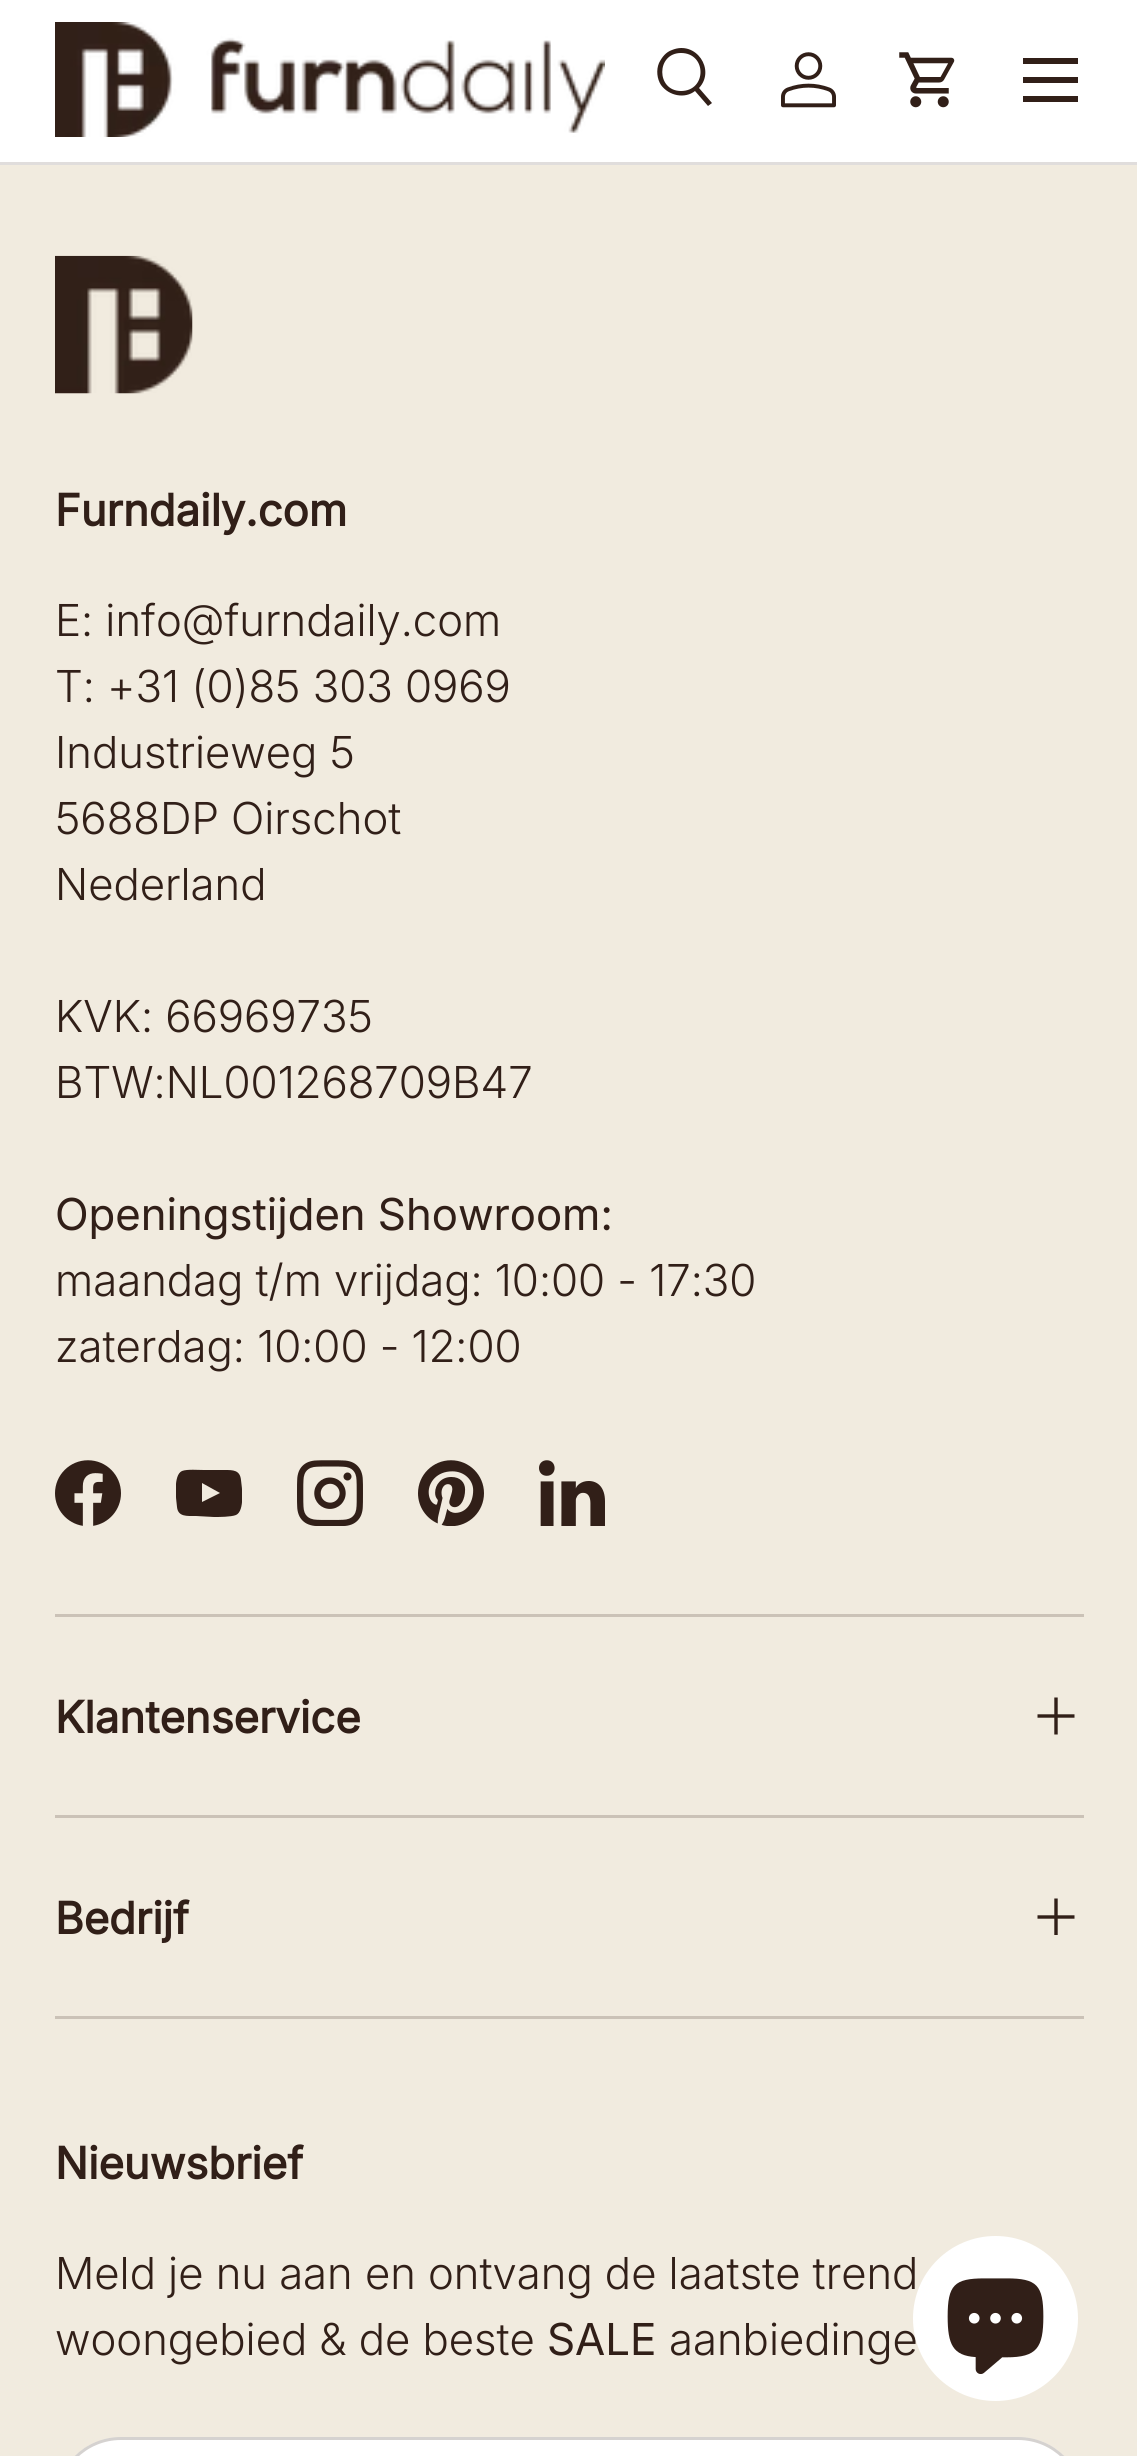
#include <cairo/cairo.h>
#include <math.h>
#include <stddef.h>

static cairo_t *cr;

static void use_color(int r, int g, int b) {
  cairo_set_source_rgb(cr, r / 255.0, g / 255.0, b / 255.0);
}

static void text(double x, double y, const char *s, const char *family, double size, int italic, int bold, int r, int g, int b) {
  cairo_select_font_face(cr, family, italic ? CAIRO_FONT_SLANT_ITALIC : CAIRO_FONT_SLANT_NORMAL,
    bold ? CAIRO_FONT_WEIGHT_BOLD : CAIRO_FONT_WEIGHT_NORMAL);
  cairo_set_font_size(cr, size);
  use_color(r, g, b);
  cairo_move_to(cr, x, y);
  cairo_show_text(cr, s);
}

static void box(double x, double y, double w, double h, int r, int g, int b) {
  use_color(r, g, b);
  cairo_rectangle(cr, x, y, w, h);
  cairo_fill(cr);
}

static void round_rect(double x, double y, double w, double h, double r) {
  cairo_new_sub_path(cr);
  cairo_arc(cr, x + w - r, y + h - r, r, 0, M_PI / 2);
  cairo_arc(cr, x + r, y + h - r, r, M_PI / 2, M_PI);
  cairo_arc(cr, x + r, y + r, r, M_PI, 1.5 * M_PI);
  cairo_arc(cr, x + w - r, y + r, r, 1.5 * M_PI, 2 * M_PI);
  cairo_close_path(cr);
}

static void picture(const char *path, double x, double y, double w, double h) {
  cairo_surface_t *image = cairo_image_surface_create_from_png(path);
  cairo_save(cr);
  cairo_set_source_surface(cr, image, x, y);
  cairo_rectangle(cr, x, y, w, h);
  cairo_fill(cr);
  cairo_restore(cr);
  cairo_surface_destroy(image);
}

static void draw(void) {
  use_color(241, 235, 223);
  cairo_paint(cr);
  box(0, 0, 1137, 162, 255, 255, 255);
  box(0, 162, 1137, 3, 224, 221, 220);
  picture("img_01.png", 55, 22, 550, 115);
  use_color(49, 31, 24);
  cairo_new_path(cr);
  cairo_move_to(cr, 699, 88);
  cairo_line_to(cr, 712, 103);
  cairo_line_to(cr, 708, 106);
  cairo_line_to(cr, 695, 91);
  cairo_curve_to(cr, 685, 99, 669, 96, 661, 85);
  cairo_curve_to(cr, 657, 79, 656, 70, 659, 63);
  cairo_curve_to(cr, 662, 57, 666, 52, 672, 50);
  cairo_curve_to(cr, 696, 40, 716, 70, 699, 88);
  cairo_close_path(cr);
  cairo_move_to(cr, 681, 91);
  cairo_curve_to(cr, 707, 91, 707, 53, 681, 53);
  cairo_curve_to(cr, 656, 53, 656, 91, 681, 91);
  cairo_close_path(cr);
  cairo_fill(cr);
  picture("img_02.png", 781, 52, 55, 56);
  picture("img_03.png", 899, 52, 56, 56);
  box(1023, 58, 55, 6, 49, 31, 24);
  box(1023, 96, 55, 6, 49, 31, 24);
  box(1023, 77, 55, 6, 49, 31, 24);
  picture("img_04.png", 55, 255, 138, 139);
  picture("img_05.png", 55, 1460, 66, 66);
  cairo_save(cr);
  cairo_rectangle(cr, 176, 1460, 66, 66);
  cairo_clip(cr);
  cairo_new_path(cr);
  cairo_move_to(cr, 202, 1502);
  cairo_line_to(cr, 202, 1483);
  cairo_line_to(cr, 220, 1493);
  cairo_close_path(cr);
  cairo_move_to(cr, 241, 1480);
  cairo_curve_to(cr, 240, 1470, 233, 1470, 225, 1470);
  cairo_line_to(cr, 204, 1470);
  cairo_curve_to(cr, 199, 1470, 187, 1469, 182, 1471);
  cairo_curve_to(cr, 173, 1475, 176, 1499, 177, 1507);
  cairo_curve_to(cr, 178, 1517, 187, 1516, 196, 1516);
  cairo_line_to(cr, 214, 1517);
  cairo_curve_to(cr, 219, 1517, 231, 1517, 236, 1515);
  cairo_curve_to(cr, 245, 1511, 242, 1487, 241, 1480);
  cairo_close_path(cr);
  cairo_fill(cr);
  cairo_restore(cr);
  picture("img_06.png", 297, 1460, 66, 66);
  picture("img_07.png", 418, 1460, 66, 66);
  picture("img_08.png", 539, 1460, 66, 66);
  box(55, 1614, 1029, 3, 203, 194, 183);
  box(55, 1815, 1029, 3, 203, 194, 183);
  cairo_new_path(cr);
  cairo_move_to(cr, 1037.5, 1716);
  cairo_line_to(cr, 1074.5, 1716);
  cairo_move_to(cr, 1056, 1697.5);
  cairo_line_to(cr, 1056, 1734.5);
  use_color(49, 31, 24);
  cairo_set_line_width(cr, 3.4);
  cairo_stroke(cr);
  box(55, 2016, 1029, 3, 203, 194, 183);
  cairo_new_path(cr);
  cairo_move_to(cr, 1037.5, 1917);
  cairo_line_to(cr, 1074.5, 1917);
  cairo_move_to(cr, 1056, 1898.5);
  cairo_line_to(cr, 1056, 1935);
  use_color(49, 31, 24);
  cairo_stroke(cr);
  use_color(255, 255, 255);
  round_rect(55, 2437, 1029, 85, 66);
  cairo_fill(cr);
  round_rect(56.5, 2438.5, 1026, 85, 64.5);
  cairo_set_source_rgba(cr, 0.192, 0.122, 0.094, 0.2);
  cairo_set_line_width(cr, 3);
  cairo_stroke(cr);
  text(55, 526, "Furndaily.com", "Inter", 44, 0, 1, 49, 31, 24);
  text(55, 636, "E: info@furndaily.com", "Inter Light", 44, 0, 0, 49, 31, 24);
  text(55, 702, "T: +31 (0)85 303 0969", "Inter Light", 44, 0, 0, 49, 31, 24);
  text(55, 768, "Industrieweg 5", "Inter Light", 44, 0, 0, 49, 31, 24);
  text(55, 834, "5688DP Oirschot", "Inter Light", 44, 0, 0, 49, 31, 24);
  text(55, 900, "Nederland", "Inter Light", 44, 0, 0, 49, 31, 24);
  text(55, 1032, "KVK: 66969735", "Inter Light", 44, 0, 0, 49, 31, 24);
  text(55, 1098, "BTW:NL001268709B47", "Inter Light", 44, 0, 0, 49, 31, 24);
  text(55, 1230, "Openingstijden Showroom:", "Inter", 44, 0, 0, 49, 31, 24);
  text(55, 1296, "maandag t/m vrijdag: 10:00 - 17:30", "Inter Light", 44, 0, 0, 49, 31, 24);
  text(55, 1362, "zaterdag: 10:00 - 12:00", "Inter Light", 44, 0, 0, 49, 31, 24);
  text(55, 1733, "Klantenservice", "Inter", 44, 0, 1, 49, 31, 24);
  text(55, 1934, "Bedrijf", "Inter", 44, 0, 1, 49, 31, 24);
  text(55, 2179, "Nieuwsbrief", "Inter", 44, 0, 1, 49, 31, 24);
  text(55, 2289, "Meld je nu aan en ontvang de laatste trend", "Inter Light", 44, 0, 0, 49, 31, 24);
  text(55, 2355, "woongebied & de beste", "Inter Light", 44, 0, 0, 49, 31, 24);
  text(547, 2355, "SALE", "Inter", 44, 0, 0, 49, 31, 24);
  text(669, 2355, "aanbiedinge", "Inter Light", 44, 0, 0, 49, 31, 24);
  use_color(255, 255, 255);
  cairo_new_path(cr);
  cairo_arc(cr, 995.5, 2318.5, 82.5, 0, 2 * M_PI);
  cairo_fill(cr);
  picture("img_09.png", 947, 2278, 97, 96);
}

int main(void) {
  cairo_surface_t *surface = cairo_image_surface_create(CAIRO_FORMAT_RGB24, 1137, 2456);
  cr = cairo_create(surface);
  cairo_font_options_t *options = cairo_font_options_create();
  cairo_font_options_set_hint_metrics(options, CAIRO_HINT_METRICS_OFF);
  cairo_font_options_set_hint_style(options, CAIRO_HINT_STYLE_NONE);
  cairo_set_font_options(cr, options);
  cairo_set_miter_limit(cr, 4);
  draw();
  cairo_surface_write_to_png(surface, "out.png");
  cairo_font_options_destroy(options);
  cairo_destroy(cr);
  cairo_surface_destroy(surface);
  return 0;
}
